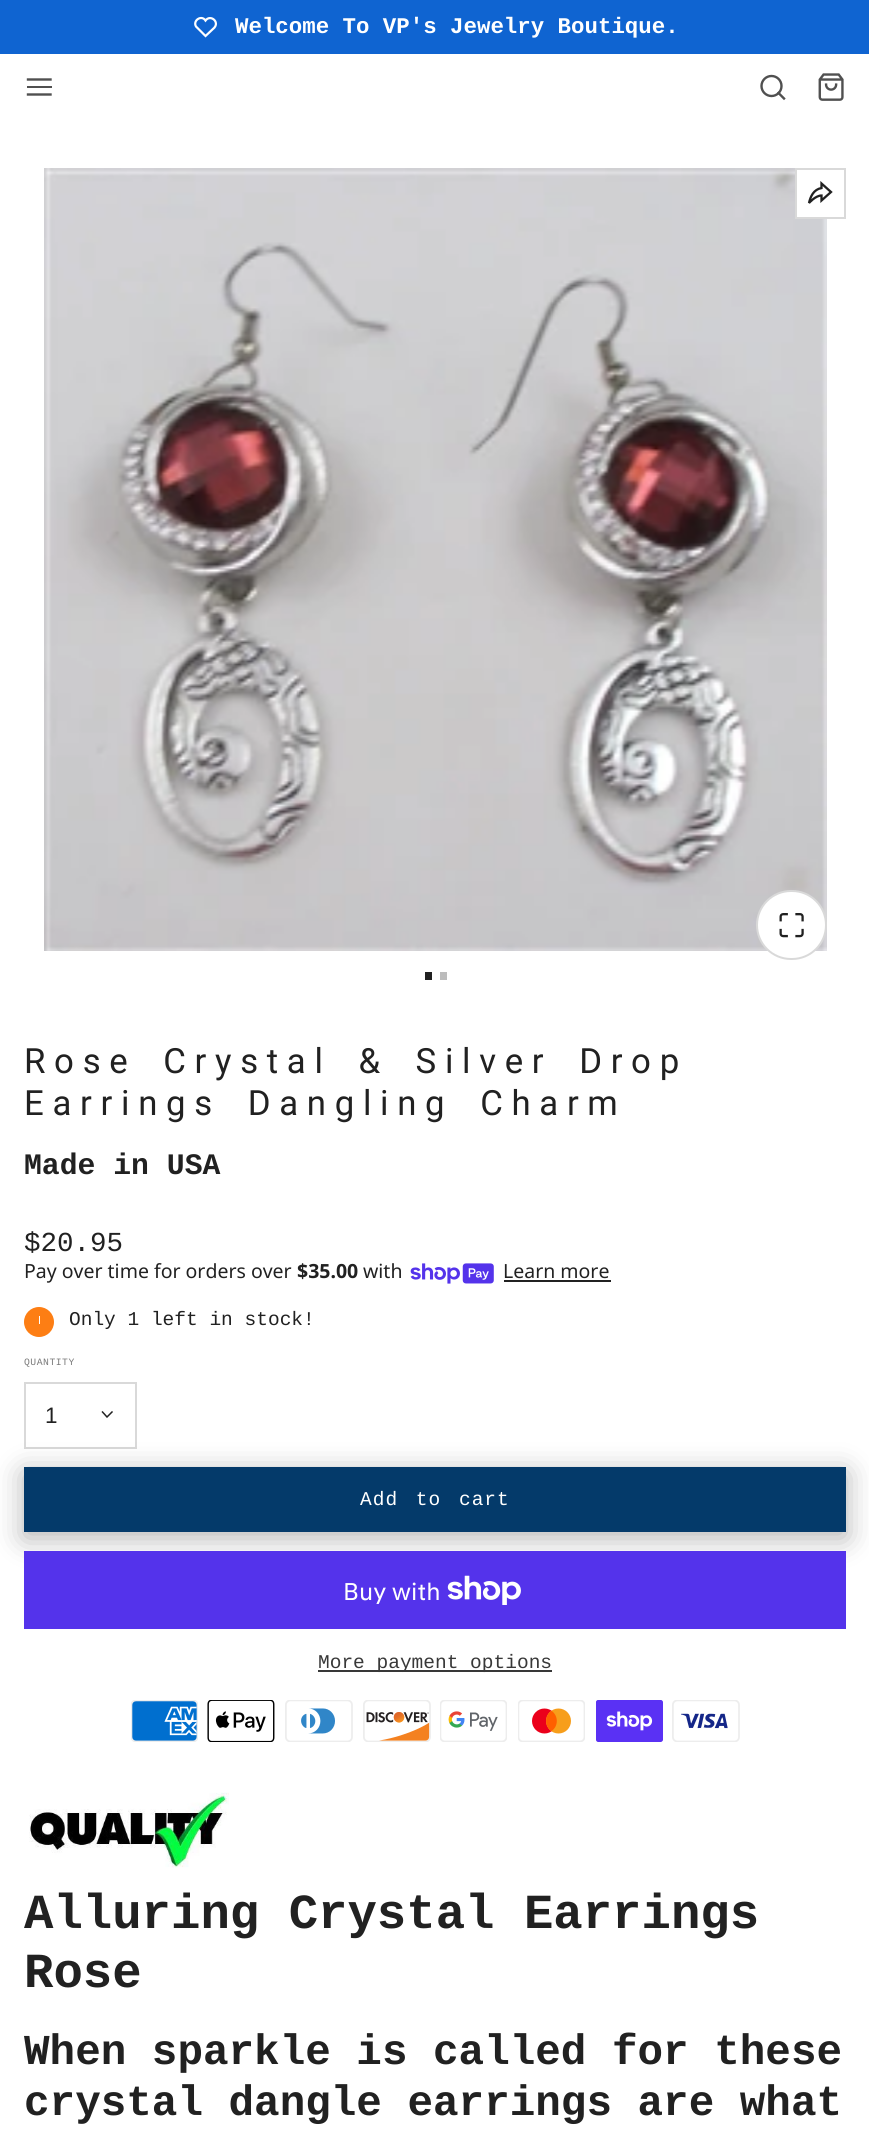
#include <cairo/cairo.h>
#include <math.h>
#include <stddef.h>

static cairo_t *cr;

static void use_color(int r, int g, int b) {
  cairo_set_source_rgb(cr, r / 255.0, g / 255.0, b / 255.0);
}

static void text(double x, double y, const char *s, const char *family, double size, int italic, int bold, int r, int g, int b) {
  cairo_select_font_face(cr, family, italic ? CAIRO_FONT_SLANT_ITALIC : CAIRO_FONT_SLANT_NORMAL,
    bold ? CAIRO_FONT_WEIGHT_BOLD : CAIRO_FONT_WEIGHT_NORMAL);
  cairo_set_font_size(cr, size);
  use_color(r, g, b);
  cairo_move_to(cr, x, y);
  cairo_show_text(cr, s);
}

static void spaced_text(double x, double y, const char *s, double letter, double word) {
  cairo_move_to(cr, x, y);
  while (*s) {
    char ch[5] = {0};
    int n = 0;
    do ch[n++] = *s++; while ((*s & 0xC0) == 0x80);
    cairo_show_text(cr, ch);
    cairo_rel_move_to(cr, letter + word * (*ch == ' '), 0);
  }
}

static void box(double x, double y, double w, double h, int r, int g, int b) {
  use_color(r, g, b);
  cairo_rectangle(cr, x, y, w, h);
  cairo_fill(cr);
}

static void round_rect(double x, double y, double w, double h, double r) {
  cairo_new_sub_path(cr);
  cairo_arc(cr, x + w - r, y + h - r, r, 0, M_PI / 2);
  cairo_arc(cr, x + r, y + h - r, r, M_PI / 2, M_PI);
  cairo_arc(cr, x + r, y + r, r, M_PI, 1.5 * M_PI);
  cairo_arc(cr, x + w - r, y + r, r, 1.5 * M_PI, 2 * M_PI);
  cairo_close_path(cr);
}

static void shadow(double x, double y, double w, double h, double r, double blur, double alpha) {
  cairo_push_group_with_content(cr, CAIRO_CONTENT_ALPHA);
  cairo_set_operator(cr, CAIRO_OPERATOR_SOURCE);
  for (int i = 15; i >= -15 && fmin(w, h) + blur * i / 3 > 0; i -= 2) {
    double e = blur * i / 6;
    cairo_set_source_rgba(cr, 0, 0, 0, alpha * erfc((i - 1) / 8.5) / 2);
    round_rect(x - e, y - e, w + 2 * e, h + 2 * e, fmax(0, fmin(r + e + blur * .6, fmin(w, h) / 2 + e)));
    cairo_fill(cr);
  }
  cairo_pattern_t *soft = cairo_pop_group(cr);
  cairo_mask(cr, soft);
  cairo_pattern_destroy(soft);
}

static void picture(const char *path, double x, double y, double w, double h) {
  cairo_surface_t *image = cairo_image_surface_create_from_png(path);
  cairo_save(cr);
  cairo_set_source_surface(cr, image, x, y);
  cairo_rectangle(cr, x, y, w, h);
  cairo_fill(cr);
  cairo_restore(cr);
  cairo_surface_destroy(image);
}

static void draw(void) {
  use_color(255, 255, 255);
  cairo_paint(cr);
  box(0, 0, 869, 54, 15, 100, 209);
  cairo_new_path(cr);
  cairo_move_to(cr, 214, 28);
  cairo_line_to(cr, 205.5, 36);
  cairo_line_to(cr, 196, 26.5);
  cairo_curve_to(cr, 192.5, 20.5, 201.5, 14.5, 205.5, 20.5);
  cairo_curve_to(cr, 210.5, 14, 220, 22, 214, 28);
  use_color(255, 255, 255);
  cairo_set_line_width(cr, 2.2);
  cairo_set_line_cap(cr, CAIRO_LINE_CAP_SQUARE);
  cairo_stroke(cr);
  box(27, 86, 25, 2, 80, 80, 80);
  cairo_new_path(cr);
  cairo_move_to(cr, 28, 79.5);
  cairo_line_to(cr, 50.5, 79.5);
  cairo_move_to(cr, 28, 94.5);
  cairo_line_to(cr, 50.5, 94.5);
  cairo_set_line_width(cr, 2.4);
  cairo_stroke(cr);
  cairo_arc(cr, 771.5, 86, 10, 0, 2 * M_PI);
  cairo_set_line_cap(cr, CAIRO_LINE_CAP_BUTT);
  cairo_stroke(cr);
  cairo_new_path(cr);
  cairo_move_to(cr, 784, 98.5);
  cairo_line_to(cr, 778.5, 93);
  cairo_set_line_cap(cr, CAIRO_LINE_CAP_SQUARE);
  cairo_stroke(cr);
  picture("img_01.png", 818, 73, 26, 28);
  picture("img_02.png", 44, 168, 783, 783);
  box(425, 972, 7, 8, 33, 33, 33);
  box(440, 972, 7, 8, 188, 188, 188);
  box(797, 170, 30, 47, 255, 255, 255);
  cairo_rectangle(cr, 796, 169, 49, 49);
  use_color(217, 217, 217);
  cairo_set_line_width(cr, 2);
  cairo_set_line_cap(cr, CAIRO_LINE_CAP_BUTT);
  cairo_stroke(cr);
  cairo_new_path(cr);
  cairo_move_to(cr, 821.5, 183.5);
  cairo_line_to(cr, 821.5, 188);
  cairo_curve_to(cr, 813.5, 189.5, 810.5, 196.5, 809, 203);
  cairo_curve_to(cr, 809, 203, 815.5, 195.5, 821.5, 195.5);
  cairo_line_to(cr, 821.5, 200.5);
  cairo_line_to(cr, 831, 192);
  cairo_close_path(cr);
  use_color(33, 33, 33);
  cairo_set_line_width(cr, 2.3);
  cairo_set_line_cap(cr, CAIRO_LINE_CAP_SQUARE);
  cairo_stroke(cr);
  use_color(255, 255, 255);
  round_rect(757, 891, 69, 68, 34);
  cairo_fill_preserve(cr);
  use_color(217, 217, 217);
  cairo_set_line_width(cr, 2);
  cairo_set_line_cap(cr, CAIRO_LINE_CAP_BUTT);
  cairo_stroke(cr);
  picture("img_03.png", 779, 913, 25, 25);
  picture("img_04.png", 410, 1263, 84, 21);
  box(504, 1280, 107, 2, 33, 33, 33);
  use_color(253, 126, 20);
  cairo_arc(cr, 39, 1322, 15, 0, 2 * M_PI);
  cairo_fill(cr);
  box(39, 1316, 1, 8, 255, 255, 255);
  cairo_rectangle(cr, 25, 1383, 111, 65);
  use_color(217, 217, 217);
  cairo_stroke(cr);
  cairo_new_path(cr);
  cairo_move_to(cr, 102.5, 1412);
  cairo_line_to(cr, 107, 1417);
  cairo_line_to(cr, 112, 1412);
  use_color(33, 33, 33);
  cairo_set_line_width(cr, 1.5);
  cairo_set_line_cap(cr, CAIRO_LINE_CAP_SQUARE);
  cairo_stroke(cr);
  use_color(0, 0, 0);
  shadow(24, 1473, 822, 65, 0, 14.5, 0.3);
  box(24, 1467, 822, 65, 4, 58, 106);
  box(24, 1551, 822, 78, 84, 51, 235);
  picture("img_05.png", 447, 1575, 74, 30);
  box(318, 1670, 234, 2, 56, 56, 56);
  picture("img_06.png", 131, 1700, 67, 42);
  picture("img_07.png", 207, 1700, 68, 42);
  picture("img_08.png", 285, 1700, 68, 42);
  picture("img_09.png", 363, 1700, 68, 42);
  picture("img_10.png", 440, 1700, 67, 42);
  picture("img_11.png", 518, 1700, 67, 42);
  picture("img_12.png", 596, 1700, 67, 42);
  picture("img_13.png", 672, 1700, 68, 42);
  picture("img_14.png", 29, 1792, 200, 76);
  text(235, 33, "Welcome To VP's Jewelry Boutique.", "Liberation Mono", 22.4, 0, 1, 255, 255, 255);
  cairo_select_font_face(cr, "Roboto", CAIRO_FONT_SLANT_NORMAL, CAIRO_FONT_WEIGHT_NORMAL);
  cairo_set_font_size(cr, 34.75);
  use_color(33, 33, 33);
  spaced_text(24, 1073, "Rose Crystal & Silver Drop", 8.7, 9.5);
  spaced_text(24, 1115, "Earrings Dangling Charm", 8.7, 9.5);
  text(24, 1174, "Made in USA", "Liberation Mono", 29.75, 0, 1, 33, 33, 33);
  text(24, 1251, "$20.95", "Liberation Mono", 27.5, 0, 0, 33, 33, 33);
  text(24, 1278, "Pay over time for orders over", "Noto Sans", 19.5, 0, 0, 33, 33, 33);
  text(297, 1278, "$35.00", "Noto Sans", 19.5, 0, 1, 33, 33, 33);
  text(363, 1278, "with", "Noto Sans", 19.5, 0, 0, 33, 33, 33);
  text(503, 1278, "Learn more", "Noto Sans", 19.5, 0, 0, 33, 33, 33);
  text(69, 1325, "Only 1 left in stock!", "Liberation Mono", 19.5, 0, 0, 33, 33, 33);
  cairo_set_font_size(cr, 9.75);
  use_color(122, 122, 122);
  spaced_text(24, 1365, "QUANTITY", 0.5, 0);
  text(45, 1423, "1", "Liberation Sans", 22.4, 0, 0, 33, 33, 33);
  cairo_select_font_face(cr, "Liberation Mono", CAIRO_FONT_SLANT_NORMAL, CAIRO_FONT_WEIGHT_NORMAL);
  cairo_set_font_size(cr, 19.5);
  use_color(255, 255, 255);
  spaced_text(360, 1505, "Add to cart", 1, 5);
  text(343, 1600, "Buy with", "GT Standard", 24, 0, 0, 255, 255, 255);
  text(318, 1668, "More payment options", "Liberation Mono", 19.5, 0, 0, 56, 56, 56);
  text(24, 1928, "Alluring Crystal Earrings", "Liberation Mono", 49, 0, 1, 33, 33, 33);
  text(24, 1987, "Rose", "Liberation Mono", 49, 0, 1, 33, 33, 33);
  text(24, 2064, "When sparkle is called for these", "Liberation Mono", 42.6, 0, 1, 33, 33, 33);
  text(24, 2115, "crystal dangle earrings are what", "Liberation Mono", 42.6, 0, 1, 33, 33, 33);
}

int main(void) {
  cairo_surface_t *surface = cairo_image_surface_create(CAIRO_FORMAT_RGB24, 869, 2137);
  cr = cairo_create(surface);
  cairo_font_options_t *options = cairo_font_options_create();
  cairo_font_options_set_hint_metrics(options, CAIRO_HINT_METRICS_OFF);
  cairo_font_options_set_hint_style(options, CAIRO_HINT_STYLE_NONE);
  cairo_set_font_options(cr, options);
  cairo_set_miter_limit(cr, 4);
  draw();
  cairo_surface_write_to_png(surface, "out.png");
  cairo_font_options_destroy(options);
  cairo_destroy(cr);
  cairo_surface_destroy(surface);
  return 0;
}
